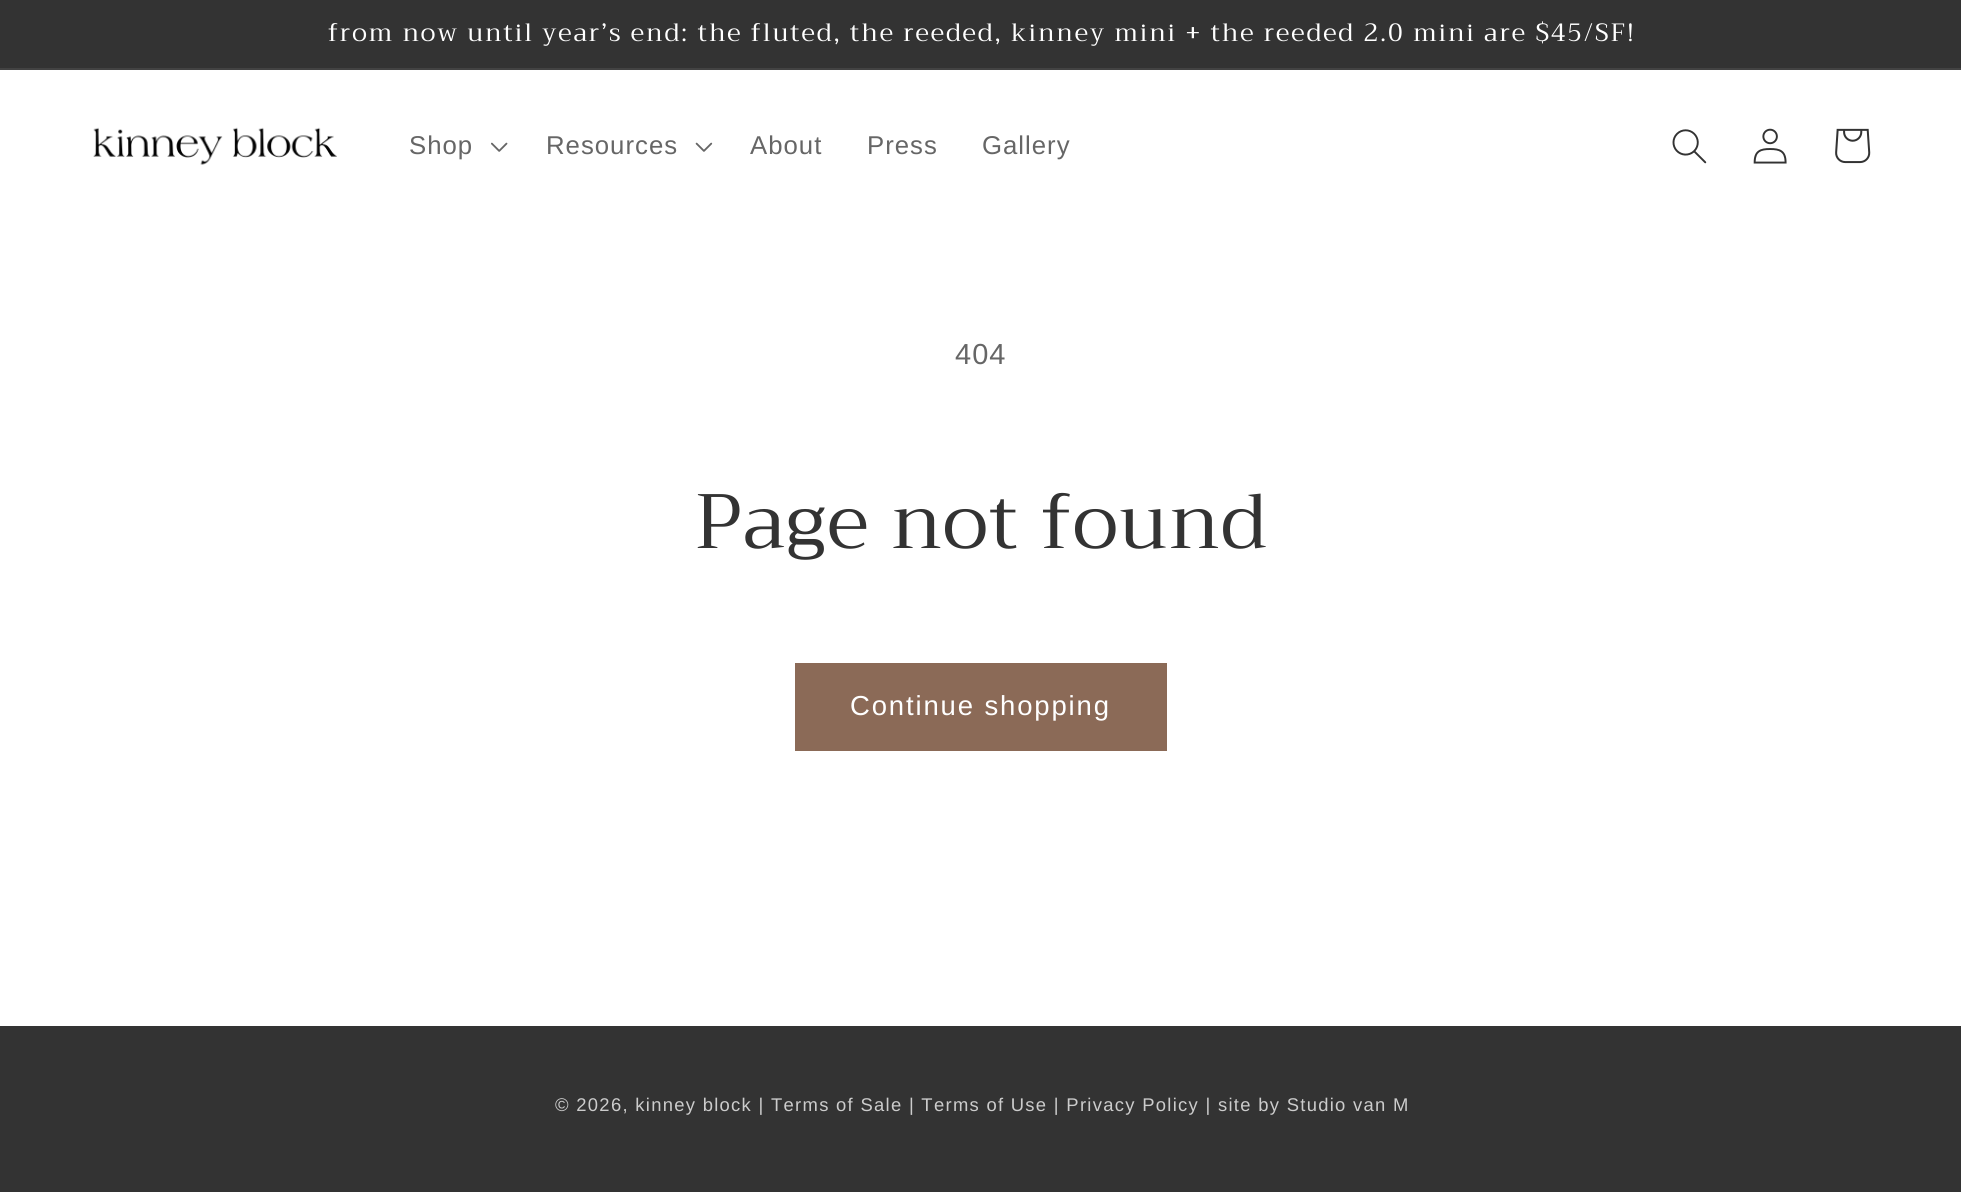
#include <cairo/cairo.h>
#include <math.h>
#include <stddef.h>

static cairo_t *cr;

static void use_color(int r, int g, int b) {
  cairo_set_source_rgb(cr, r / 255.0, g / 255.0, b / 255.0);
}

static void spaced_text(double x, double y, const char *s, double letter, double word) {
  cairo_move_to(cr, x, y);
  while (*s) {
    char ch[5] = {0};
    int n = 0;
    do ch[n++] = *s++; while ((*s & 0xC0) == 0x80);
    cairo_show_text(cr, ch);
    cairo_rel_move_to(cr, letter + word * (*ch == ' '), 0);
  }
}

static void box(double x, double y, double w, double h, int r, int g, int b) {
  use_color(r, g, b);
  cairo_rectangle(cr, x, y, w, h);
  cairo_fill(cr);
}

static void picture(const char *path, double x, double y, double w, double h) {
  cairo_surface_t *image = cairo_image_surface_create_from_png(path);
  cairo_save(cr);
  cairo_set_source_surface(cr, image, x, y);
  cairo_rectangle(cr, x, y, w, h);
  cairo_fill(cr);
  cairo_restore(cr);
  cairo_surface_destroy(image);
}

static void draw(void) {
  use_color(255, 255, 255);
  cairo_paint(cr);
  box(0, 0, 1961, 68, 51, 51, 51);
  box(0, 68, 1961, 2, 67, 67, 67);
  picture("img_01.png", 93, 127, 244, 38);
  picture("img_02.png", 491, 142, 17, 10);
  picture("img_03.png", 695, 142, 18, 10);
  picture("img_04.png", 1672, 129, 35, 35);
  picture("img_05.png", 1753, 128, 34, 36);
  picture("img_06.png", 1835, 128, 36, 36);
  box(795, 663, 372, 88, 139, 106, 87);
  box(0, 1026, 1961, 166, 51, 51, 51);
  cairo_select_font_face(cr, "Trirong", CAIRO_FONT_SLANT_NORMAL, CAIRO_FONT_WEIGHT_NORMAL);
  cairo_set_font_size(cr, 25.03);
  use_color(255, 255, 255);
  spaced_text(328, 41, "from now until year’s end: the fluted, the reeded, kinney mini + the reeded 2.0 mini are $45/SF!", 1.85, 0);
  cairo_select_font_face(cr, "Liberation Sans", CAIRO_FONT_SLANT_NORMAL, CAIRO_FONT_WEIGHT_NORMAL);
  cairo_set_font_size(cr, 25.75);
  use_color(102, 102, 102);
  spaced_text(409, 154, "Shop", 1, 0);
  spaced_text(546, 154, "Resources", 1, 0);
  spaced_text(750, 154, "About", 1, 0);
  spaced_text(867, 154, "Press", 1, 0);
  spaced_text(982, 154, "Gallery", 1, 0);
  cairo_set_font_size(cr, 29);
  spaced_text(955, 364, "404", 1, 0);
  cairo_select_font_face(cr, "Trirong", CAIRO_FONT_SLANT_NORMAL, CAIRO_FONT_WEIGHT_NORMAL);
  cairo_set_font_size(cr, 77);
  use_color(51, 51, 51);
  spaced_text(695, 548, "Page not found", 1.2, 0);
  cairo_select_font_face(cr, "Liberation Sans", CAIRO_FONT_SLANT_NORMAL, CAIRO_FONT_WEIGHT_NORMAL);
  cairo_set_font_size(cr, 27.5);
  use_color(255, 255, 255);
  spaced_text(850, 715, "Continue shopping", 1.85, 0);
  cairo_set_font_size(cr, 18.4);
  use_color(204, 204, 204);
  spaced_text(555, 1111, "© 2026, kinney block | Terms of Sale | Terms of Use | Privacy Policy | site by Studio van M", 1.3, 0);
}

int main(void) {
  cairo_surface_t *surface = cairo_image_surface_create(CAIRO_FORMAT_RGB24, 1961, 1192);
  cr = cairo_create(surface);
  cairo_font_options_t *options = cairo_font_options_create();
  cairo_font_options_set_hint_metrics(options, CAIRO_HINT_METRICS_OFF);
  cairo_font_options_set_hint_style(options, CAIRO_HINT_STYLE_NONE);
  cairo_set_font_options(cr, options);
  cairo_set_miter_limit(cr, 4);
  draw();
  cairo_surface_write_to_png(surface, "out.png");
  cairo_font_options_destroy(options);
  cairo_destroy(cr);
  cairo_surface_destroy(surface);
  return 0;
}
